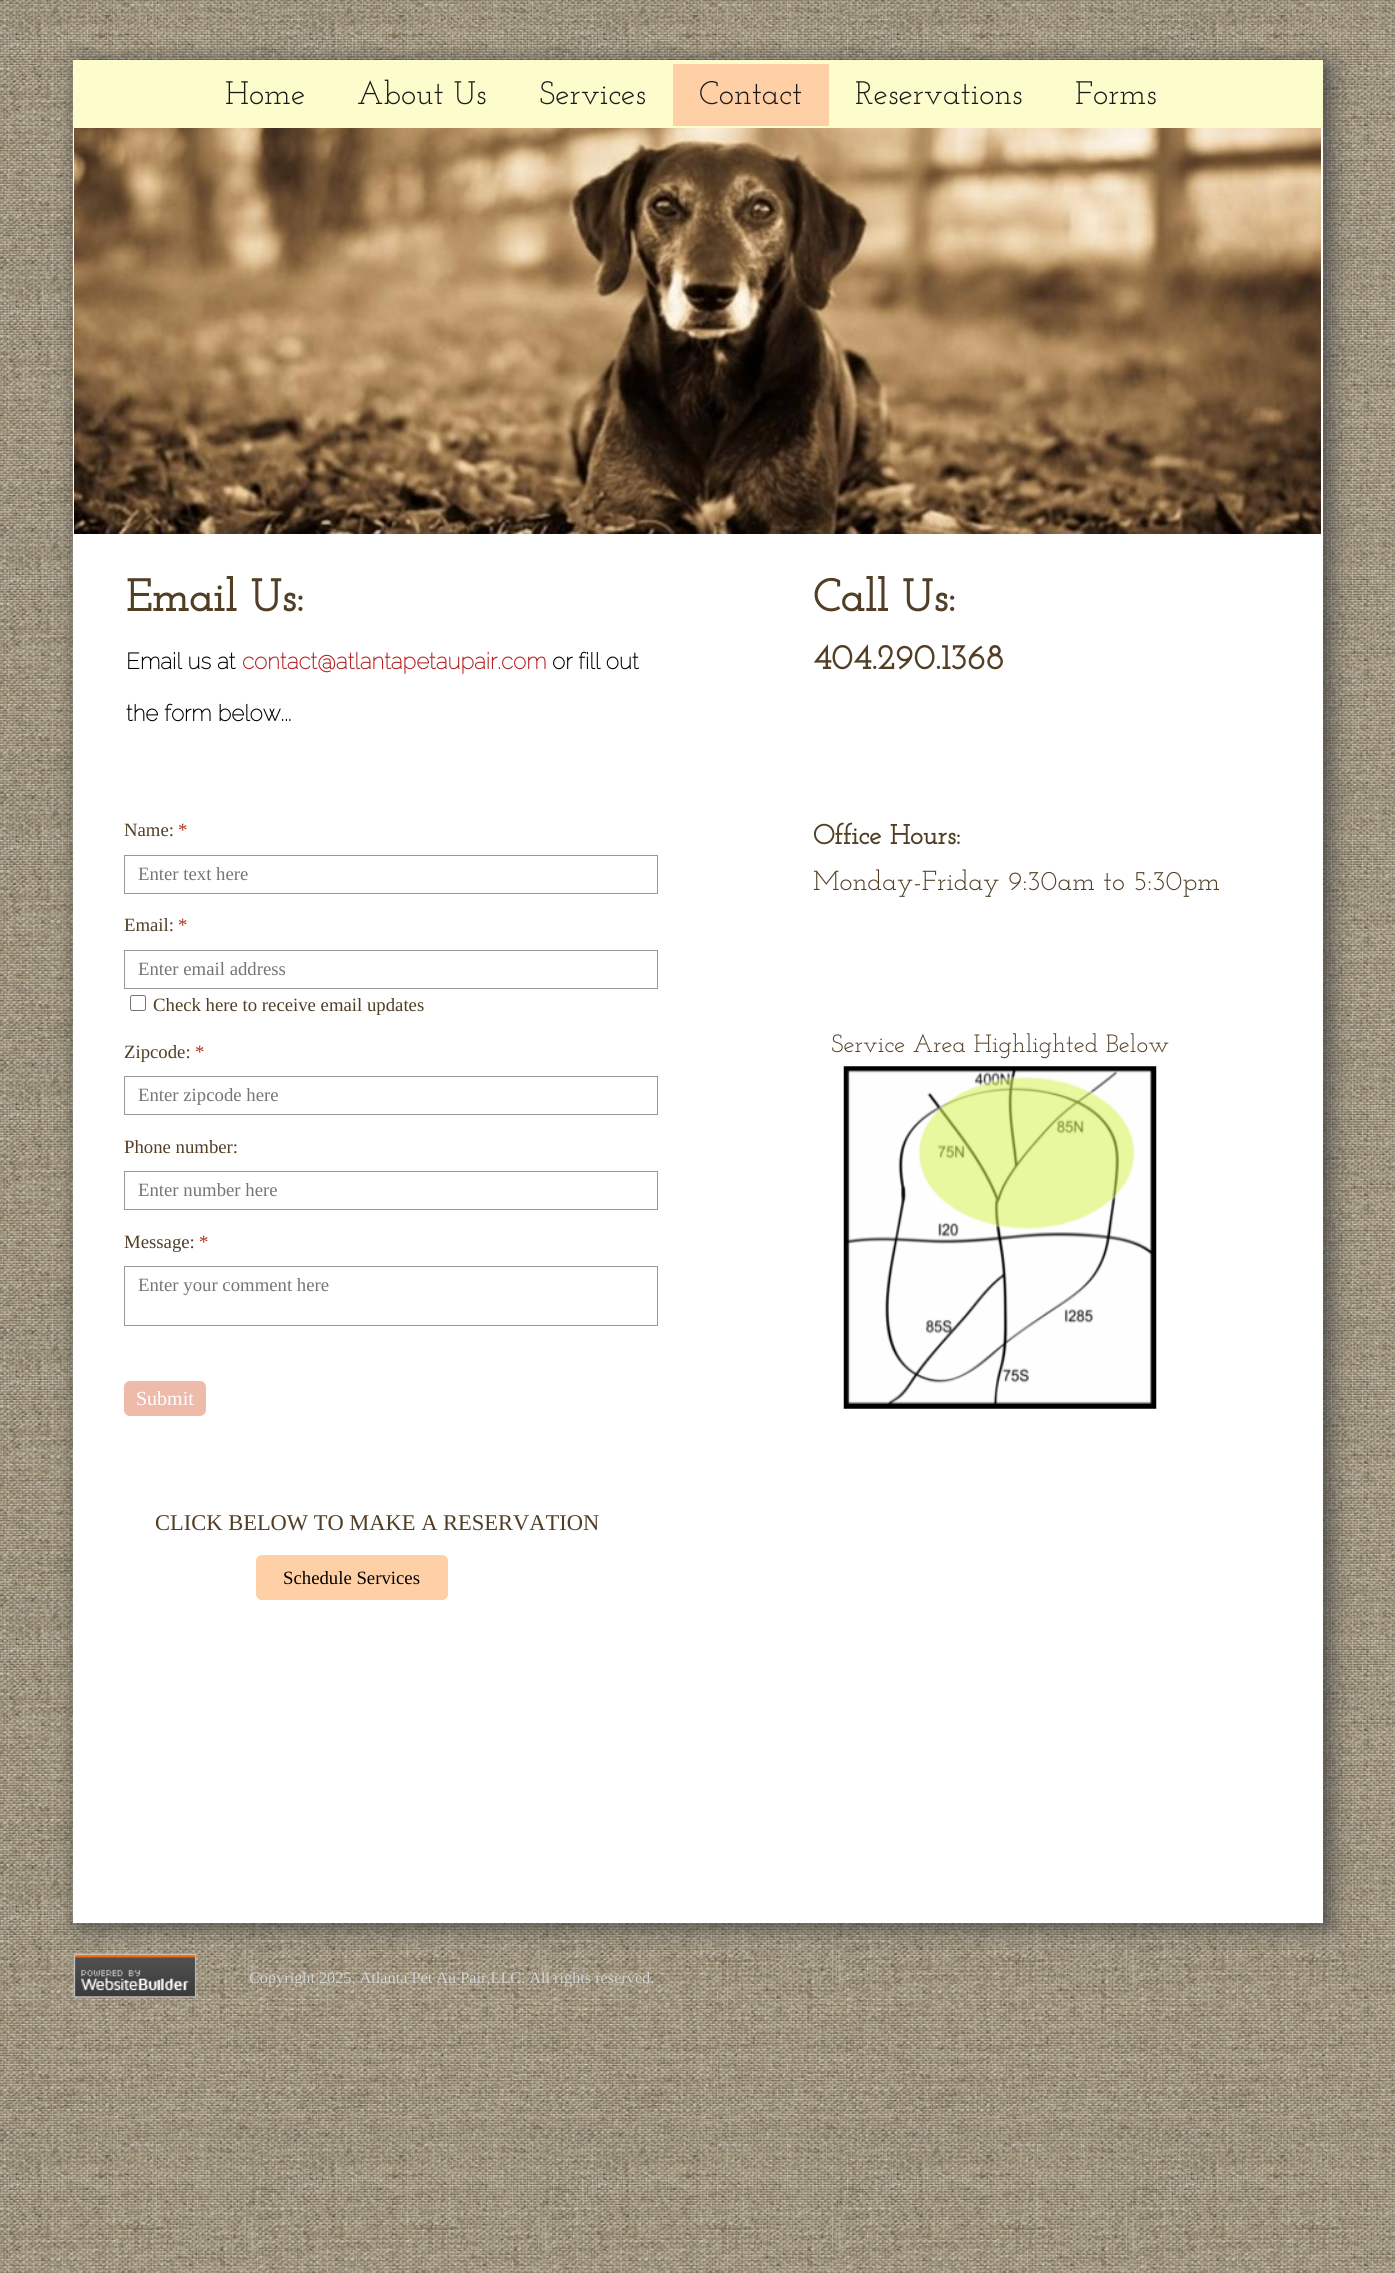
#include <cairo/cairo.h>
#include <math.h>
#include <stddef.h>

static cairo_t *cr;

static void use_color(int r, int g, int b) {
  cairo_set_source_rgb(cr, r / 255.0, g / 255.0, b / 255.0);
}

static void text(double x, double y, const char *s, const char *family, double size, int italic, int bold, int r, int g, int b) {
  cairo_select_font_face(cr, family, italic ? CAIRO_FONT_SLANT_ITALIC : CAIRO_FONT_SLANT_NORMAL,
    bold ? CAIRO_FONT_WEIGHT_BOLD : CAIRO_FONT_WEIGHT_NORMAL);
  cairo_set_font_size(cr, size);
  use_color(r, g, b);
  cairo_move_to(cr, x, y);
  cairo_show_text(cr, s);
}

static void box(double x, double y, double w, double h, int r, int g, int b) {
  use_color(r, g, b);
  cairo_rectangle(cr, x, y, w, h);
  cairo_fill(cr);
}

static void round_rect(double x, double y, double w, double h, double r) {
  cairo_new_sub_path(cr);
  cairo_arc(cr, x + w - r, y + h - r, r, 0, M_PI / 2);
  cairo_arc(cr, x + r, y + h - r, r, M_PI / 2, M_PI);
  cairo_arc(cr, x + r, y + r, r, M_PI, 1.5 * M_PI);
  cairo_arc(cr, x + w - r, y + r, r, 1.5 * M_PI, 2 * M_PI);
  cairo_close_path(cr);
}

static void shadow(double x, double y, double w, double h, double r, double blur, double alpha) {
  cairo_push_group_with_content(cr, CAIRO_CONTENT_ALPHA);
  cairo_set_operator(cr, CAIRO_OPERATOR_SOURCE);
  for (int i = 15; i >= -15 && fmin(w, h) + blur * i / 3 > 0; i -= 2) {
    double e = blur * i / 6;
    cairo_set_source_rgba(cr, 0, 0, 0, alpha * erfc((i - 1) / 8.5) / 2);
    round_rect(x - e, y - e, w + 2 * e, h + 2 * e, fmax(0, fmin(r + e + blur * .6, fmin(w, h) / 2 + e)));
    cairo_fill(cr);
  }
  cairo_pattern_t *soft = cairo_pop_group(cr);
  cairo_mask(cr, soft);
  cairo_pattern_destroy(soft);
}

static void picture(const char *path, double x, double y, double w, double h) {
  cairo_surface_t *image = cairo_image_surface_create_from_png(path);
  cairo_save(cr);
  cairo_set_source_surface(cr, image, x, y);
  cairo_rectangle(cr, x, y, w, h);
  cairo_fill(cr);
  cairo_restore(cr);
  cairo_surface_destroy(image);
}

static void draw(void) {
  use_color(255, 255, 255);
  cairo_paint(cr);
  picture("img_01.png", 0, 0, 1395, 2273);
  use_color(68, 68, 68);
  shadow(79, 65, 1250, 1860, 0, 12, 1);
  box(73, 128, 1250, 1795, 255, 255, 255);
  box(73, 60, 1250, 68, 252, 252, 204);
  box(673, 64, 156, 62, 255, 208, 165);
  picture("img_02.png", 74, 128, 1247, 406);
  cairo_rectangle(cr, 124.5, 855.5, 533, 38);
  use_color(153, 153, 153);
  cairo_set_line_width(cr, 1);
  cairo_stroke(cr);
  cairo_rectangle(cr, 124.5, 950.5, 533, 38);
  cairo_stroke(cr);
  round_rect(130.5, 995.5, 15, 15, 2);
  use_color(118, 118, 118);
  cairo_stroke(cr);
  cairo_rectangle(cr, 124.5, 1076.5, 533, 38);
  use_color(153, 153, 153);
  cairo_stroke(cr);
  cairo_rectangle(cr, 124.5, 1171.5, 533, 38);
  cairo_stroke(cr);
  picture("img_03.png", 843, 1066, 314, 343);
  cairo_rectangle(cr, 124.5, 1266.5, 533, 59);
  cairo_stroke(cr);
  use_color(238, 186, 170);
  round_rect(124, 1381, 82, 35, 6);
  cairo_fill(cr);
  cairo_save(cr);
  round_rect(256, 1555, 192, 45, 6);
  cairo_clip(cr);
  use_color(0, 0, 0);
  shadow(269, 1555, 166, 45, 9, 9.5, 0.6);
  cairo_restore(cr);
  use_color(255, 208, 165);
  round_rect(256, 1555, 192, 45, 6);
  cairo_fill(cr);
  picture("img_04.png", 73, 1953, 124, 45);
  text(225, 104, "Home", "Josefin Slab Thin", 32.5, 0, 0, 25, 25, 25);
  text(357, 104, "About Us", "Josefin Slab Thin", 32.5, 0, 0, 25, 25, 25);
  text(539, 104, "Services", "Josefin Slab Thin", 32.5, 0, 0, 25, 25, 25);
  text(699, 104, "Contact", "Josefin Slab Thin", 32.5, 0, 0, 25, 25, 25);
  text(855, 104, "Reservations", "Josefin Slab Thin", 32.5, 0, 0, 25, 25, 25);
  text(1075, 104, "Forms", "Josefin Slab Thin", 32.5, 0, 0, 25, 25, 25);
  text(126, 611, "Email Us:", "Josefin Slab", 45, 0, 1, 81, 62, 37);
  text(126, 669, "Email us at", "Raleway", 22.5, 0, 1, 0, 0, 0);
  text(242, 669, "contact@atlantapetaupair.com", "Raleway", 22.5, 0, 1, 178, 34, 34);
  text(552, 669, "or fill out", "Raleway", 22.5, 0, 1, 0, 0, 0);
  text(126, 721, "the form below...", "Raleway", 22.5, 0, 1, 0, 0, 0);
  text(813, 611, "Call Us:", "Josefin Slab", 45, 0, 1, 81, 62, 37);
  text(813, 669, "404.290.1368", "Josefin Slab", 35, 0, 1, 81, 62, 37);
  text(124, 836, "Name:", "Liberation Serif", 18.75, 0, 0, 81, 62, 37);
  text(178, 836, "*", "Liberation Serif", 18.75, 0, 0, 176, 47, 20);
  text(138, 880, "Enter text here", "Liberation Serif", 18.75, 0, 0, 117, 117, 117);
  text(813, 844, "Office Hours:", "Josefin Slab", 27.5, 0, 1, 81, 62, 37);
  text(813, 890, "Monday-Friday 9:30am to 5:30pm", "Josefin Slab Thin", 27.5, 0, 0, 81, 62, 37);
  text(124, 931, "Email:", "Liberation Serif", 18.75, 0, 0, 81, 62, 37);
  text(178, 931, "*", "Liberation Serif", 18.75, 0, 0, 176, 47, 20);
  text(138, 975, "Enter email address", "Liberation Serif", 18.75, 0, 0, 117, 117, 117);
  text(153, 1011, "Check here to receive email updates", "Liberation Serif", 18.75, 0, 0, 81, 62, 37);
  text(124, 1058, "Zipcode:", "Liberation Serif", 18.75, 0, 0, 81, 62, 37);
  text(195, 1058, "*", "Liberation Serif", 18.75, 0, 0, 176, 47, 20);
  text(138, 1101, "Enter zipcode here", "Liberation Serif", 18.75, 0, 0, 117, 117, 117);
  text(831, 1052, "Service Area Highlighted Below", "Josefin Slab Thin", 25, 0, 0, 81, 62, 37);
  text(124, 1153, "Phone number:", "Liberation Serif", 18.75, 0, 0, 81, 62, 37);
  text(138, 1196, "Enter number here", "Liberation Serif", 18.75, 0, 0, 117, 117, 117);
  text(124, 1248, "Message:", "Liberation Serif", 18.75, 0, 0, 81, 62, 37);
  text(199, 1248, "*", "Liberation Serif", 18.75, 0, 0, 176, 47, 20);
  text(138, 1291, "Enter your comment here", "Liberation Serif", 18.75, 0, 0, 117, 117, 117);
  text(136, 1405, "Submit", "Liberation Serif", 20, 0, 0, 255, 255, 255);
  text(155, 1530, "CLICK BELOW TO MAKE A RESERVATION", "Liberation Serif", 22.5, 0, 0, 81, 62, 37);
  text(283, 1584, "Schedule Services", "Liberation Serif", 18.75, 0, 0, 0, 0, 0);
  text(249, 1983, "Copyright 2025. Atlanta Pet Au Pair,LLC. All rights reserved.", "Liberation Serif", 16.25, 0, 0, 211, 211, 211);
}

int main(void) {
  cairo_surface_t *surface = cairo_image_surface_create(CAIRO_FORMAT_RGB24, 1395, 2273);
  cr = cairo_create(surface);
  cairo_font_options_t *options = cairo_font_options_create();
  cairo_font_options_set_hint_metrics(options, CAIRO_HINT_METRICS_OFF);
  cairo_font_options_set_hint_style(options, CAIRO_HINT_STYLE_NONE);
  cairo_set_font_options(cr, options);
  cairo_set_miter_limit(cr, 4);
  draw();
  cairo_surface_write_to_png(surface, "out.png");
  cairo_font_options_destroy(options);
  cairo_destroy(cr);
  cairo_surface_destroy(surface);
  return 0;
}
